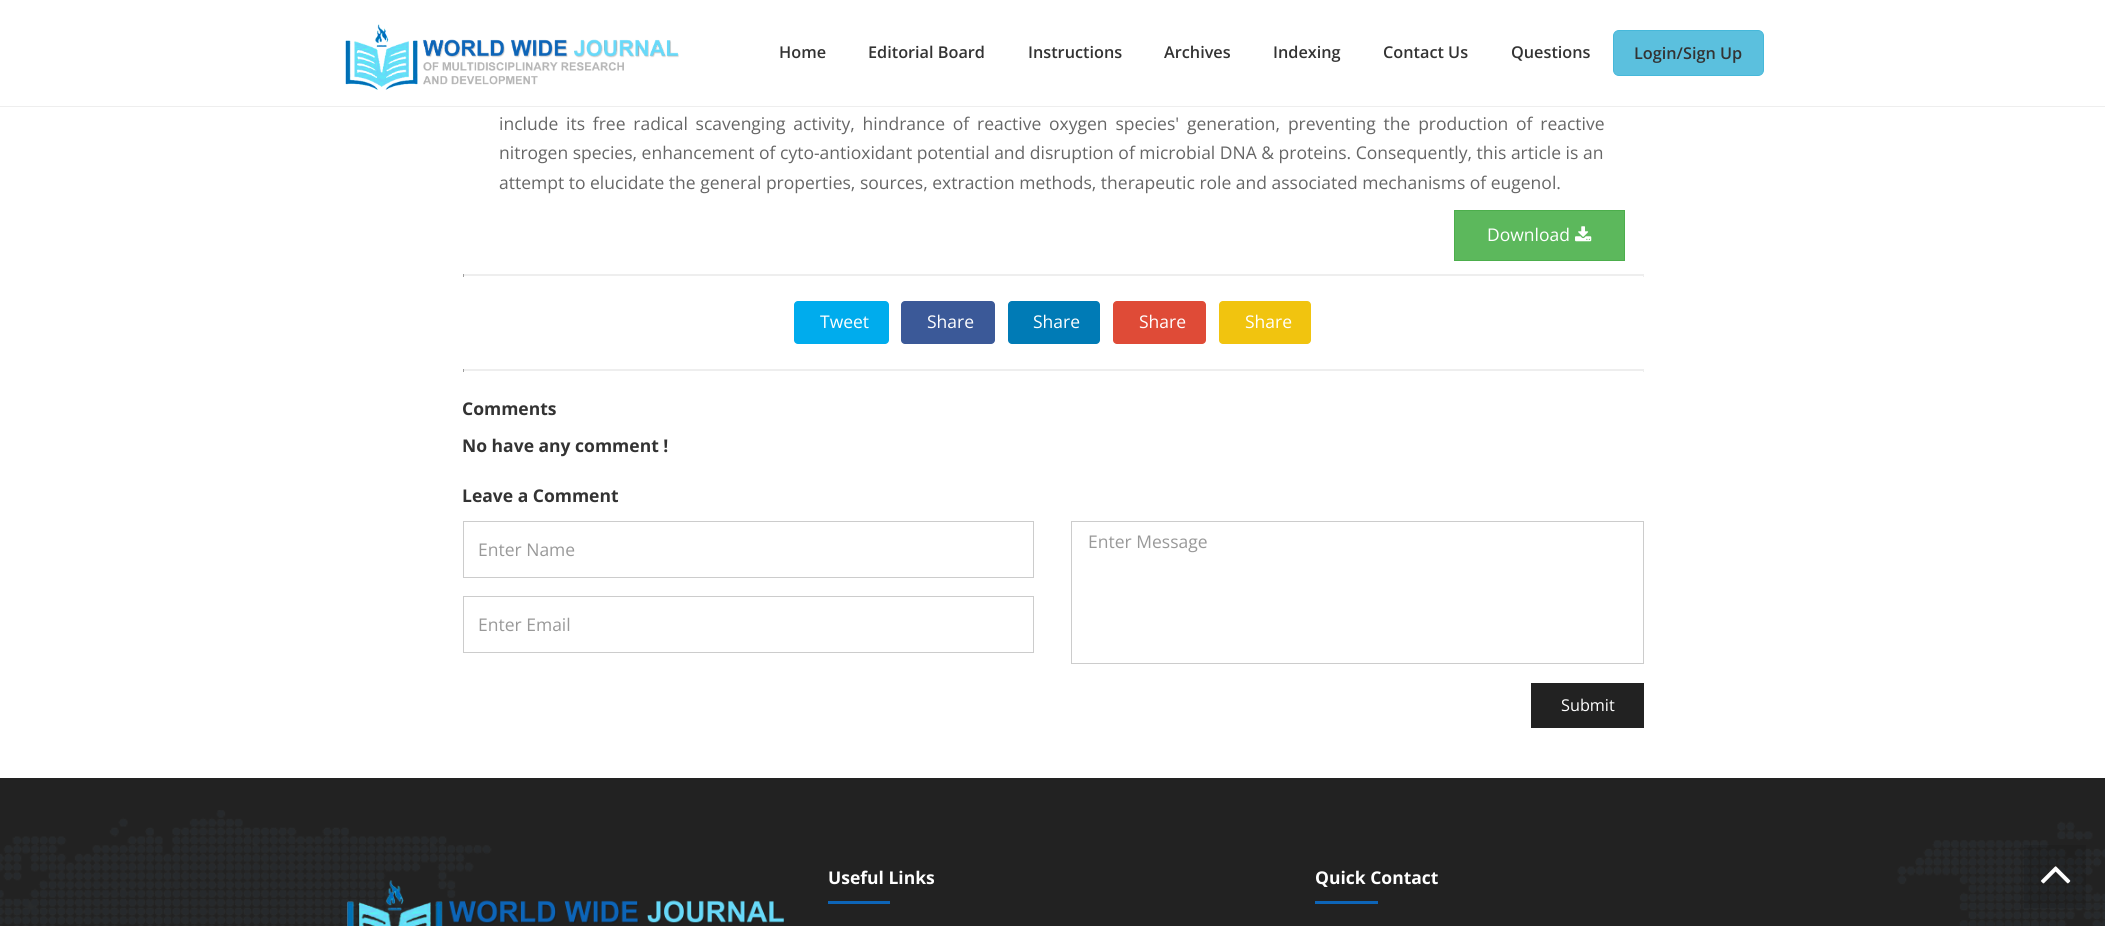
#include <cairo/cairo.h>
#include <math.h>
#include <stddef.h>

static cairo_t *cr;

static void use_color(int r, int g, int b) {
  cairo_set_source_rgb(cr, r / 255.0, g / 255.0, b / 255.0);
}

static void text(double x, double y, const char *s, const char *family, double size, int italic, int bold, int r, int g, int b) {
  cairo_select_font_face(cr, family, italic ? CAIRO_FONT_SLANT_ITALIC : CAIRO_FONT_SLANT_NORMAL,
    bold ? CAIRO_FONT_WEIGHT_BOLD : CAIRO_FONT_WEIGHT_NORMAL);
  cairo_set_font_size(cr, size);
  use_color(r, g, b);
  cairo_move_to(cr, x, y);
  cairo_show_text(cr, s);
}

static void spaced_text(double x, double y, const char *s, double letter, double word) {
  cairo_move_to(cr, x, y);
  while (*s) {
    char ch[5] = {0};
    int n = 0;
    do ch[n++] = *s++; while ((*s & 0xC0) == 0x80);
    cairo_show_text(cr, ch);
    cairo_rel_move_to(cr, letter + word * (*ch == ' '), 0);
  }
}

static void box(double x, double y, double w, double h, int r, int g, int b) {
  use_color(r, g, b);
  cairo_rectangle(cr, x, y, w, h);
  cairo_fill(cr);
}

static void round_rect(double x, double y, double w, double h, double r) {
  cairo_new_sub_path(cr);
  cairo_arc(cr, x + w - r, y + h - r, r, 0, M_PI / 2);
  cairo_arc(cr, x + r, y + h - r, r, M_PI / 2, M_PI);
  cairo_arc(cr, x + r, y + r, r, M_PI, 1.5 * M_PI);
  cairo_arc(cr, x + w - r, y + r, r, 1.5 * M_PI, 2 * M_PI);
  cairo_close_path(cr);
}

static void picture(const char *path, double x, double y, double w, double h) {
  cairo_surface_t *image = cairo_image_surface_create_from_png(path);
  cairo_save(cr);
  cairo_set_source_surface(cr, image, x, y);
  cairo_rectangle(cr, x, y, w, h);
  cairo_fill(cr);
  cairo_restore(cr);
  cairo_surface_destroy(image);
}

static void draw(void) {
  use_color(255, 255, 255);
  cairo_paint(cr);
  box(0, 106, 2105, 1, 238, 238, 238);
  picture("img_01.png", 345, 24, 334, 66);
  use_color(91, 192, 222);
  round_rect(1613.5, 30.5, 150, 45, 5.5);
  cairo_fill_preserve(cr);
  use_color(70, 184, 218);
  cairo_set_line_width(cr, 1);
  cairo_stroke(cr);
  use_color(92, 184, 92);
  cairo_rectangle(cr, 1454.5, 210.5, 170, 50);
  cairo_fill_preserve(cr);
  use_color(76, 174, 76);
  cairo_stroke(cr);
  picture("img_02.png", 1575, 226, 17, 16);
  box(463, 274, 1181, 1, 238, 238, 238);
  box(1643, 274, 1, 3, 238, 238, 238);
  box(463, 275, 1181, 1, 238, 238, 238);
  box(463, 274, 1, 3, 159, 159, 159);
  use_color(0, 172, 237);
  round_rect(794, 301, 95, 43, 4);
  cairo_fill(cr);
  use_color(59, 89, 152);
  round_rect(901, 301, 94, 43, 4);
  cairo_fill(cr);
  use_color(0, 123, 182);
  round_rect(1008, 301, 92, 43, 4);
  cairo_fill(cr);
  use_color(223, 75, 55);
  round_rect(1113, 301, 93, 43, 4);
  cairo_fill(cr);
  use_color(241, 196, 15);
  round_rect(1219, 301, 92, 43, 4);
  cairo_fill(cr);
  box(463, 369, 1181, 1, 238, 238, 238);
  box(1643, 369, 1, 3, 238, 238, 238);
  box(463, 370, 1181, 1, 238, 238, 238);
  box(463, 369, 1, 3, 159, 159, 159);
  cairo_rectangle(cr, 463.5, 521.5, 570, 56);
  use_color(204, 204, 204);
  cairo_stroke(cr);
  cairo_rectangle(cr, 463.5, 596.5, 570, 56);
  cairo_stroke(cr);
  cairo_rectangle(cr, 1071.5, 521.5, 572, 142);
  cairo_stroke(cr);
  box(1531, 683, 113, 45, 34, 34, 34);
  box(0, 778, 2105, 148, 34, 34, 34);
  picture("img_03.png", 0, 810, 2105, 116);
  picture("img_04.png", 347, 880, 438, 46);
  box(828, 901, 62, 3, 13, 101, 184);
  box(1315, 901, 63, 3, 13, 101, 184);
  cairo_set_source_rgba(cr, 0, 0, 0, 0.1);
  cairo_rectangle(cr, 2024, 845, 62, 63);
  cairo_fill(cr);
  picture("img_05.png", 2041, 866, 30, 18);
  text(779, 58, "Home", "Open Sans SemiBold", 16.25, 0, 0, 51, 51, 51);
  text(868, 58, "Editorial Board", "Open Sans SemiBold", 16.25, 0, 0, 51, 51, 51);
  text(1028, 58, "Instructions", "Open Sans SemiBold", 16.25, 0, 0, 51, 51, 51);
  text(1164, 58, "Archives", "Open Sans SemiBold", 16.25, 0, 0, 51, 51, 51);
  text(1273, 58, "Indexing", "Open Sans SemiBold", 16.25, 0, 0, 51, 51, 51);
  text(1383, 58, "Contact Us", "Open Sans SemiBold", 16.25, 0, 0, 51, 51, 51);
  text(1511, 58, "Questions", "Open Sans SemiBold", 16.25, 0, 0, 51, 51, 51);
  text(1634, 59, "Login/Sign Up", "Open Sans SemiBold", 16.25, 0, 0, 51, 51, 51);
  cairo_select_font_face(cr, "Open Sans", CAIRO_FONT_SLANT_NORMAL, CAIRO_FONT_WEIGHT_NORMAL);
  cairo_set_font_size(cr, 17.5);
  use_color(102, 102, 102);
  spaced_text(499, 130, "include its free radical scavenging activity, hindrance of reactive oxygen species' generation, preventing the production of reactive", 0, 3.25);
  text(499, 159, "nitrogen species, enhancement of cyto-antioxidant potential and disruption of microbial DNA & proteins. Consequently, this article is an", "Open Sans", 17.5, 0, 0, 102, 102, 102);
  text(499, 189, "attempt to elucidate the general properties, sources, extraction methods, therapeutic role and associated mechanisms of eugenol.", "Open Sans", 17.5, 0, 0, 102, 102, 102);
  text(1487, 241, "Download", "Open Sans", 17.5, 0, 0, 255, 255, 255);
  text(820, 328, "Tweet", "Open Sans", 17.5, 0, 0, 255, 255, 255);
  text(927, 328, "Share", "Open Sans", 17.5, 0, 0, 255, 255, 255);
  text(1033, 328, "Share", "Open Sans", 17.5, 0, 0, 255, 255, 255);
  text(1139, 328, "Share", "Open Sans", 17.5, 0, 0, 255, 255, 255);
  text(1245, 328, "Share", "Open Sans", 17.5, 0, 0, 255, 255, 255);
  text(462, 415, "Comments", "Open Sans", 17.5, 0, 1, 51, 51, 51);
  text(462, 452, "No have any comment !", "Open Sans", 17.5, 0, 1, 51, 51, 51);
  text(462, 502, "Leave a Comment", "Open Sans", 17.5, 0, 1, 51, 51, 51);
  text(478, 556, "Enter Name", "Open Sans", 17.5, 0, 0, 153, 153, 153);
  text(478, 631, "Enter Email", "Open Sans", 17.5, 0, 0, 153, 153, 153);
  text(1088, 548, "Enter Message", "Open Sans", 17.5, 0, 0, 153, 153, 153);
  text(1561, 711, "Submit", "Open Sans", 16.25, 0, 0, 255, 255, 255);
  text(828, 884, "Useful Links", "Open Sans", 17.5, 0, 1, 255, 255, 255);
  text(1315, 884, "Quick Contact", "Open Sans", 17.5, 0, 1, 255, 255, 255);
}

int main(void) {
  cairo_surface_t *surface = cairo_image_surface_create(CAIRO_FORMAT_RGB24, 2105, 926);
  cr = cairo_create(surface);
  cairo_font_options_t *options = cairo_font_options_create();
  cairo_font_options_set_hint_metrics(options, CAIRO_HINT_METRICS_OFF);
  cairo_font_options_set_hint_style(options, CAIRO_HINT_STYLE_NONE);
  cairo_set_font_options(cr, options);
  cairo_set_miter_limit(cr, 4);
  draw();
  cairo_surface_write_to_png(surface, "out.png");
  cairo_font_options_destroy(options);
  cairo_destroy(cr);
  cairo_surface_destroy(surface);
  return 0;
}
